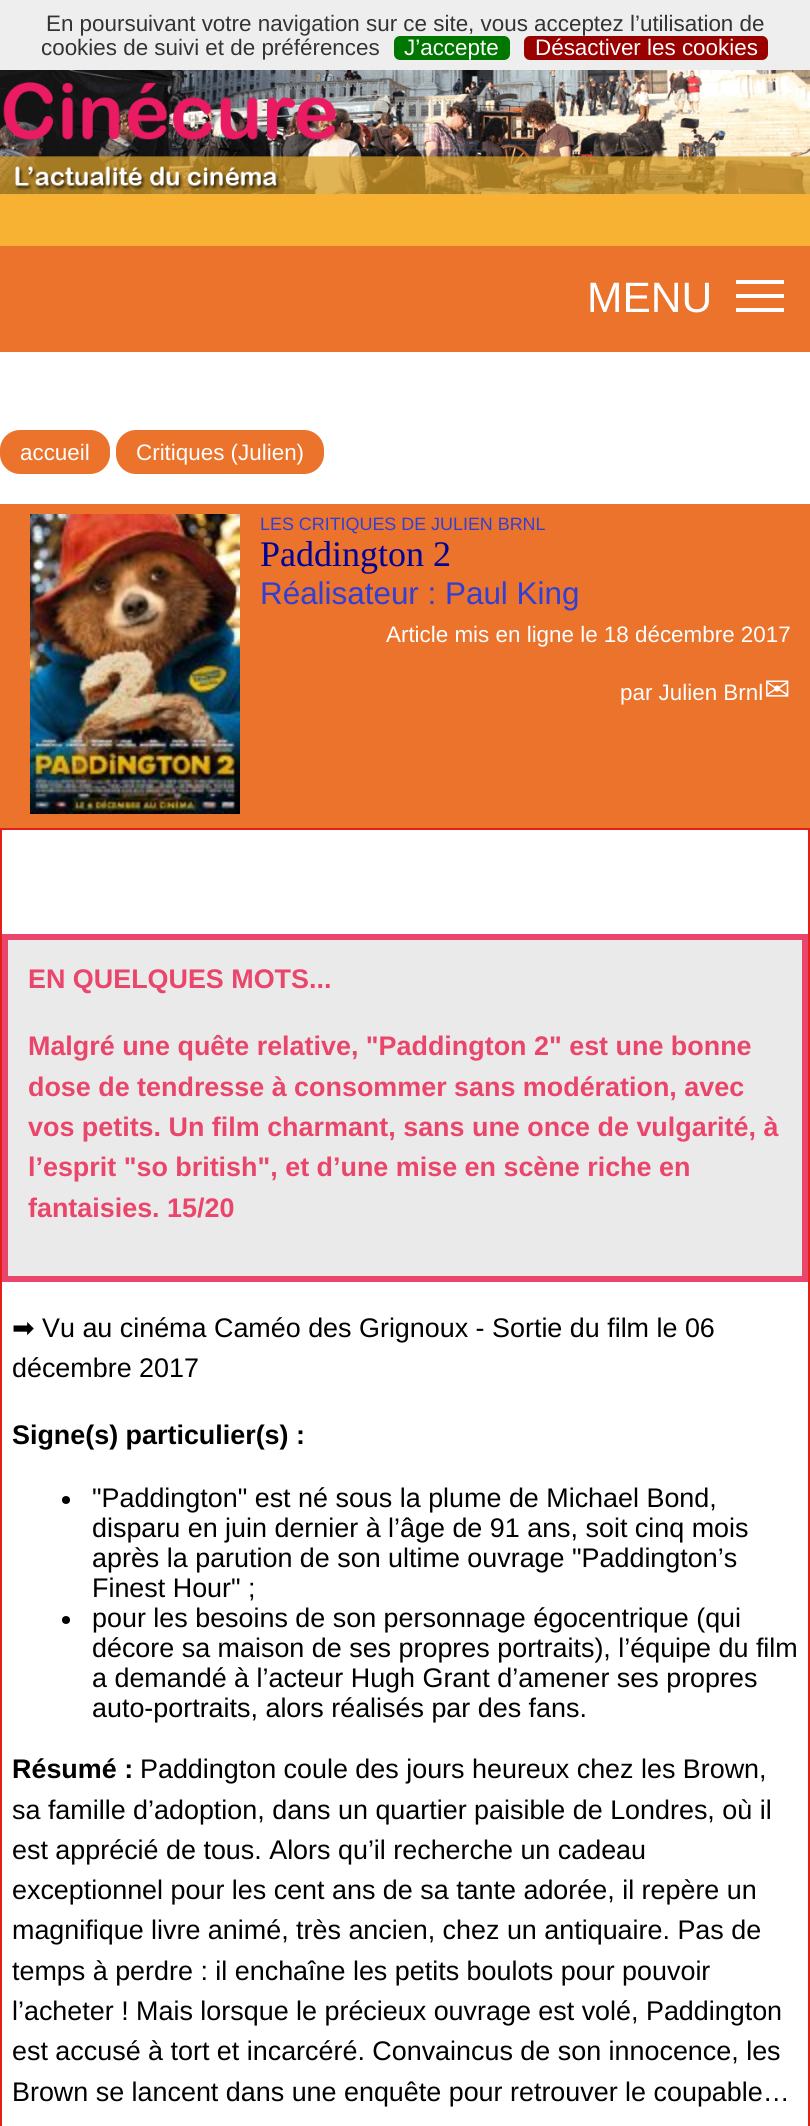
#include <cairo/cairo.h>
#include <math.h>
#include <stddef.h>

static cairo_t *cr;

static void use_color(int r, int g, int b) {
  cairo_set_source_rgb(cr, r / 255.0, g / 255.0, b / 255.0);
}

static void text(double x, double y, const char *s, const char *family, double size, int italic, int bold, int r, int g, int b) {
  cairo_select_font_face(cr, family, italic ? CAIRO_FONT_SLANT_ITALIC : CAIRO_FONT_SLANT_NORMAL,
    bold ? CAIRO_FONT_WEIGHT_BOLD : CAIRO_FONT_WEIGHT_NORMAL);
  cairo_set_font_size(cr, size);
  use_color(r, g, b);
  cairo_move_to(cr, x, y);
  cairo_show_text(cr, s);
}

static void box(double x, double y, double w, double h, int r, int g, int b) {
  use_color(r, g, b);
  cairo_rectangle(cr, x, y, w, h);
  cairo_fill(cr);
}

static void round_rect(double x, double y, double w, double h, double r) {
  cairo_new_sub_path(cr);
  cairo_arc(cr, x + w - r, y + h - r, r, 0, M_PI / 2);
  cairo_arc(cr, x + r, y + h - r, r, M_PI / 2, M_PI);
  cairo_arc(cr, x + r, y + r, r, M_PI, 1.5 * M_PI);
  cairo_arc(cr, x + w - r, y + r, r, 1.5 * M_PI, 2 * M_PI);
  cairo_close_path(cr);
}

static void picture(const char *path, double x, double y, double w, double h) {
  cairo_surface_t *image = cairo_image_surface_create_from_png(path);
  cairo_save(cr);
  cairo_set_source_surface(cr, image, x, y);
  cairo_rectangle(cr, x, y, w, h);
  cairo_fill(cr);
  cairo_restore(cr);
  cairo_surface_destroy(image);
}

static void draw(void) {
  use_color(238, 238, 238);
  cairo_paint(cr);
  use_color(0, 119, 0);
  round_rect(394, 36, 116, 24, 6);
  cairo_fill(cr);
  use_color(153, 0, 0);
  round_rect(524, 36, 244, 24, 6);
  cairo_fill(cr);
  box(0, 352, 810, 1774, 255, 255, 255);
  box(0, 194, 810, 52, 247, 178, 52);
  picture("img_01.png", 0, 70, 810, 124);
  box(0, 246, 810, 106, 235, 115, 43);
  box(736, 294, 48, 4, 255, 255, 255);
  box(736, 280, 48, 4, 255, 255, 255);
  box(736, 308, 48, 4, 255, 255, 255);
  use_color(235, 115, 43);
  round_rect(0, 430, 110, 44, 20);
  cairo_fill(cr);
  round_rect(116, 430, 208, 44, 20);
  cairo_fill(cr);
  box(0, 504, 810, 324, 235, 115, 43);
  picture("img_02.png", 30, 514, 210, 300);
  cairo_rectangle(cr, 1, 829, 808, 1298);
  use_color(226, 32, 25);
  cairo_stroke(cr);
  use_color(234, 234, 234);
  cairo_rectangle(cr, 5, 937, 800, 342);
  cairo_fill_preserve(cr);
  use_color(234, 69, 106);
  cairo_set_line_width(cr, 6);
  cairo_stroke(cr);
  use_color(0, 0, 0);
  cairo_arc(cr, 66, 1500, 4, 0, 2 * M_PI);
  cairo_fill(cr);
  cairo_arc(cr, 66, 1620, 4, 0, 2 * M_PI);
  cairo_fill(cr);
  text(46, 31, "En poursuivant votre navigation sur ce site, vous acceptez l’utilisation de", "Liberation Sans", 22.4, 0, 0, 51, 51, 51);
  text(41, 55, "cookies de suivi et de préférences", "Liberation Sans", 22.4, 0, 0, 51, 51, 51);
  text(404, 55, "J’accepte", "Liberation Sans", 22.4, 0, 0, 255, 255, 255);
  text(535, 55, "Désactiver les cookies", "Liberation Sans", 22.4, 0, 0, 255, 255, 255);
  text(587, 312, "MENU", "Liberation Sans", 42.5, 0, 0, 255, 255, 255);
  text(20, 460, "accueil", "Liberation Sans", 22.4, 0, 0, 255, 255, 255);
  text(136, 460, "Critiques (Julien)", "Liberation Sans", 22.4, 0, 0, 255, 255, 255);
  text(260, 530, "LES CRITIQUES DE JULIEN BRNL", "Liberation Sans", 17.9, 0, 0, 50, 63, 213);
  text(260, 566, "Paddington 2", "Liberation Serif", 36, 0, 0, 0, 0, 153);
  text(260, 604, "Réalisateur : Paul King", "Liberation Sans", 31.4, 0, 0, 50, 63, 213);
  text(386, 642, "Article mis en ligne le 18 décembre 2017", "Liberation Sans", 22.4, 0, 0, 255, 255, 255);
  text(620, 700, "par Julien Brnl", "Liberation Sans", 22.4, 0, 0, 255, 255, 255);
  text(764, 700, "✉", "DejaVu Sans", 31.4, 0, 0, 255, 255, 255);
  text(28, 988, "EN QUELQUES MOTS...", "Liberation Sans", 26.9, 0, 1, 234, 69, 106);
  text(28, 1055, "Malgré une quête relative, \"Paddington 2\" est une bonne", "Liberation Sans", 26.9, 0, 1, 234, 69, 106);
  text(28, 1096, "dose de tendresse à consommer sans modération, avec", "Liberation Sans", 26.9, 0, 1, 234, 69, 106);
  text(28, 1136, "vos petits. Un film charmant, sans une once de vulgarité, à", "Liberation Sans", 26.9, 0, 1, 234, 69, 106);
  text(28, 1176, "l’esprit \"so british\", et d’une mise en scène riche en", "Liberation Sans", 26.9, 0, 1, 234, 69, 106);
  text(28, 1217, "fantaisies. 15/20", "Liberation Sans", 26.9, 0, 1, 234, 69, 106);
  text(12, 1337, "➡", "DejaVu Sans", 26.9, 0, 0, 0, 0, 0);
  text(42, 1337, "Vu au cinéma Caméo des Grignoux - Sortie du film le 06", "Liberation Sans", 26.9, 0, 0, 0, 0, 0);
  text(12, 1377, "décembre 2017", "Liberation Sans", 26.9, 0, 0, 0, 0, 0);
  text(12, 1444, "Signe(s) particulier(s) :", "Liberation Sans", 26.9, 0, 1, 0, 0, 0);
  text(92, 1507, "\"Paddington\" est né sous la plume de Michael Bond,", "Liberation Sans", 26.9, 0, 0, 0, 0, 0);
  text(92, 1537, "disparu en juin dernier à l’âge de 91 ans, soit cinq mois", "Liberation Sans", 26.9, 0, 0, 0, 0, 0);
  text(92, 1567, "après la parution de son ultime ouvrage \"Paddington’s", "Liberation Sans", 26.9, 0, 0, 0, 0, 0);
  text(92, 1597, "Finest Hour\" ;", "Liberation Sans", 26.9, 0, 0, 0, 0, 0);
  text(92, 1627, "pour les besoins de son personnage égocentrique (qui", "Liberation Sans", 26.9, 0, 0, 0, 0, 0);
  text(92, 1657, "décore sa maison de ses propres portraits), l’équipe du film", "Liberation Sans", 26.9, 0, 0, 0, 0, 0);
  text(92, 1687, "a demandé à l’acteur Hugh Grant d’amener ses propres", "Liberation Sans", 26.9, 0, 0, 0, 0, 0);
  text(92, 1717, "auto-portraits, alors réalisés par des fans.", "Liberation Sans", 26.9, 0, 0, 0, 0, 0);
  text(12, 1778, "Résumé :", "Liberation Sans", 26.9, 0, 1, 0, 0, 0);
  text(140, 1778, "Paddington coule des jours heureux chez les Brown,", "Liberation Sans", 26.9, 0, 0, 0, 0, 0);
  text(12, 1819, "sa famille d’adoption, dans un quartier paisible de Londres, où il", "Liberation Sans", 26.9, 0, 0, 0, 0, 0);
  text(12, 1859, "est apprécié de tous. Alors qu’il recherche un cadeau", "Liberation Sans", 26.9, 0, 0, 0, 0, 0);
  text(12, 1899, "exceptionnel pour les cent ans de sa tante adorée, il repère un", "Liberation Sans", 26.9, 0, 0, 0, 0, 0);
  text(12, 1939, "magnifique livre animé, très ancien, chez un antiquaire. Pas de", "Liberation Sans", 26.9, 0, 0, 0, 0, 0);
  text(12, 1980, "temps à perdre : il enchaîne les petits boulots pour pouvoir", "Liberation Sans", 26.9, 0, 0, 0, 0, 0);
  text(12, 2020, "l’acheter ! Mais lorsque le précieux ouvrage est volé, Paddington", "Liberation Sans", 26.9, 0, 0, 0, 0, 0);
  text(12, 2060, "est accusé à tort et incarcéré. Convaincus de son innocence, les", "Liberation Sans", 26.9, 0, 0, 0, 0, 0);
  text(12, 2101, "Brown se lancent dans une enquête pour retrouver le coupable…", "Liberation Sans", 26.9, 0, 0, 0, 0, 0);
}

int main(void) {
  cairo_surface_t *surface = cairo_image_surface_create(CAIRO_FORMAT_RGB24, 810, 2126);
  cr = cairo_create(surface);
  cairo_font_options_t *options = cairo_font_options_create();
  cairo_font_options_set_hint_metrics(options, CAIRO_HINT_METRICS_OFF);
  cairo_font_options_set_hint_style(options, CAIRO_HINT_STYLE_NONE);
  cairo_set_font_options(cr, options);
  cairo_set_miter_limit(cr, 4);
  draw();
  cairo_surface_write_to_png(surface, "out.png");
  cairo_font_options_destroy(options);
  cairo_destroy(cr);
  cairo_surface_destroy(surface);
  return 0;
}
